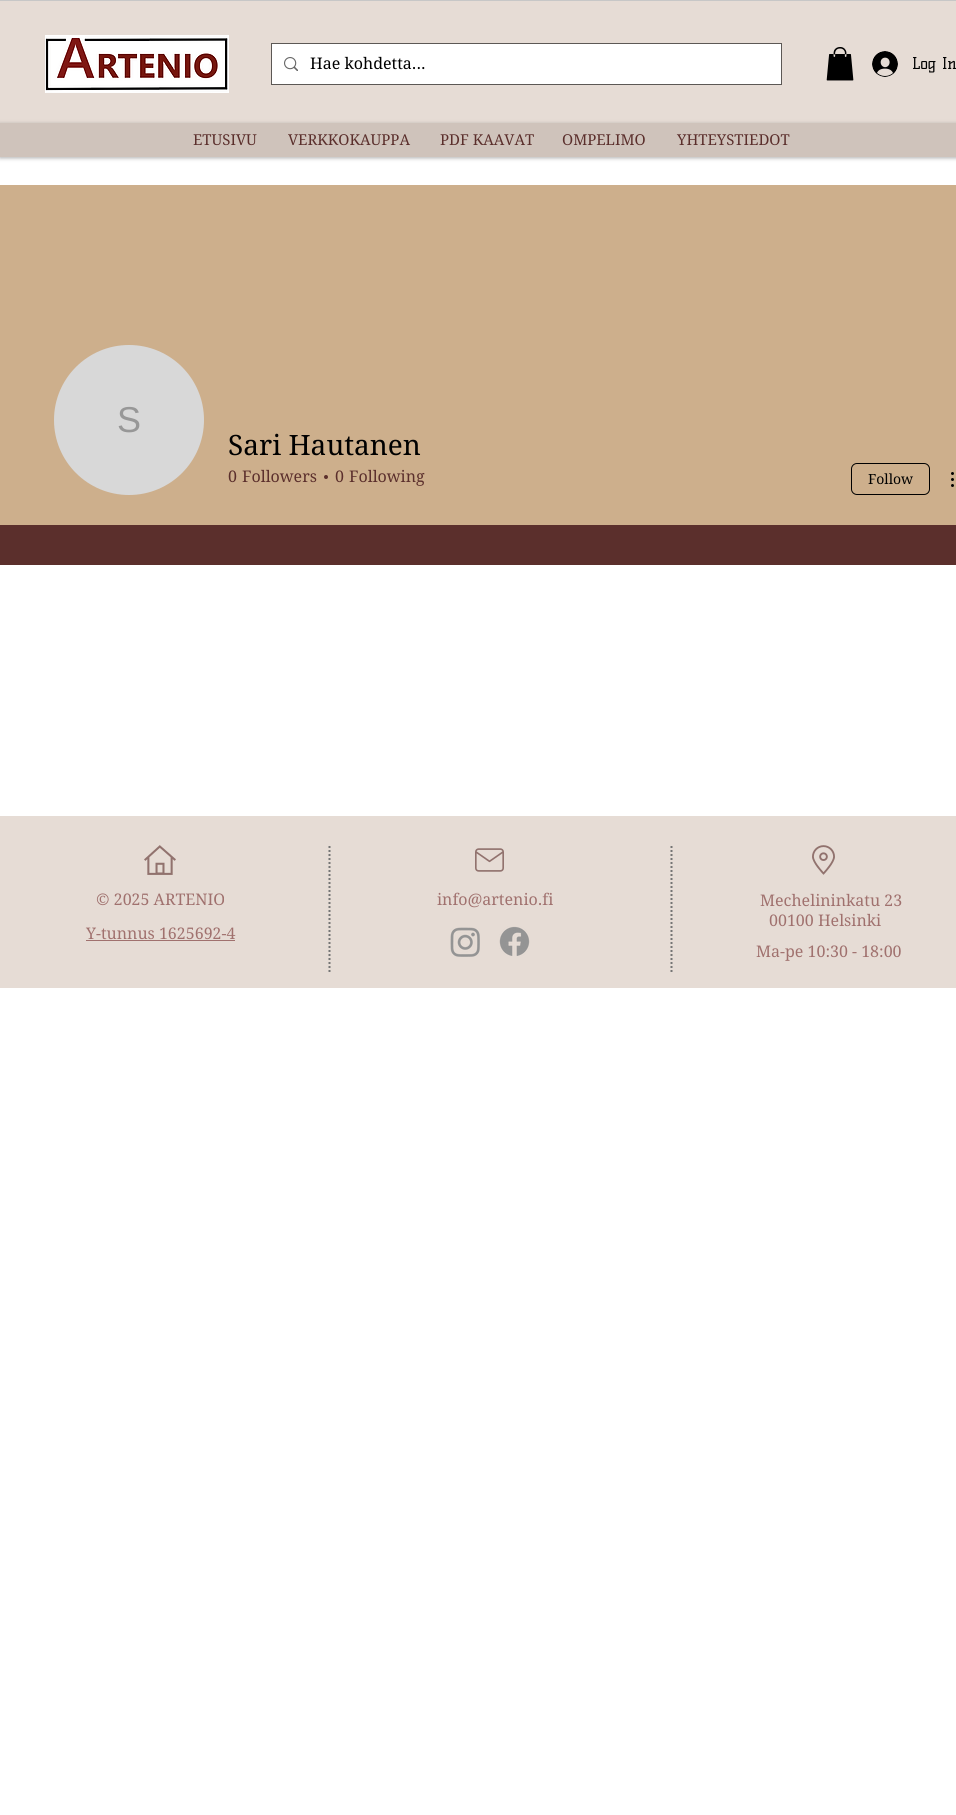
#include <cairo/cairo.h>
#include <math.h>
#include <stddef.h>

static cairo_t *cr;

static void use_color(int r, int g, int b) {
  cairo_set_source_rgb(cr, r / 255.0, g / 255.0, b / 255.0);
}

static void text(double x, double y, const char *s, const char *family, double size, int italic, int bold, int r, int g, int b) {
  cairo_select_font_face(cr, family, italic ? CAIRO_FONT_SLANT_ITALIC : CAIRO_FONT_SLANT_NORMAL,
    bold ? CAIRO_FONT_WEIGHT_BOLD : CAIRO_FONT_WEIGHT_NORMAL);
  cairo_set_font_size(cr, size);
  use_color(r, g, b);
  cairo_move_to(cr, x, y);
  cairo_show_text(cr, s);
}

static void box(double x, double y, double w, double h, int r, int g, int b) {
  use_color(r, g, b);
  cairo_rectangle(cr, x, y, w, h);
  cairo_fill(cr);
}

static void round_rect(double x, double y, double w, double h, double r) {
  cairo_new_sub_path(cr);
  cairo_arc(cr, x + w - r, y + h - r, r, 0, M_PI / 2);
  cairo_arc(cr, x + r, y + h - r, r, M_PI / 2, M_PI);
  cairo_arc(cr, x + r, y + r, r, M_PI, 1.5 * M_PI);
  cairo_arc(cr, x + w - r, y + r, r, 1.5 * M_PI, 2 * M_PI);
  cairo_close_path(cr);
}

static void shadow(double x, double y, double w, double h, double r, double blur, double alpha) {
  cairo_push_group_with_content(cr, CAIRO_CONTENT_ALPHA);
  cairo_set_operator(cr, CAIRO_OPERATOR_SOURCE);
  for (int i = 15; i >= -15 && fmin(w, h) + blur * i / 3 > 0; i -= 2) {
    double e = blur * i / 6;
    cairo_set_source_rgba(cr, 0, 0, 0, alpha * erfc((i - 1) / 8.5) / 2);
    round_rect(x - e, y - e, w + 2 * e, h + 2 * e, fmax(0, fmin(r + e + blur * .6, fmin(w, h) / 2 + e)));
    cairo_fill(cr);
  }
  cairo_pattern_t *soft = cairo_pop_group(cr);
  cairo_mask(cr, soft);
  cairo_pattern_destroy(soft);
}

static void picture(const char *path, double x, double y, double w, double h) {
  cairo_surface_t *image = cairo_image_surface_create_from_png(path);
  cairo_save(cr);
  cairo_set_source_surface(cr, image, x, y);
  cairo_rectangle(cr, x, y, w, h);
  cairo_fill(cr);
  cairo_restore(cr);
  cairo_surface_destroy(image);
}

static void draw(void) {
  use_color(255, 255, 255);
  cairo_paint(cr);
  box(0, 0, 956, 1, 199, 199, 199);
  box(0, 1, 956, 122, 230, 220, 213);
  picture("img_01.png", 45, 35, 184, 58);
  cairo_rectangle(cr, 271.5, 43.5, 510, 41);
  use_color(92, 88, 85);
  cairo_set_line_width(cr, 1);
  cairo_stroke(cr);
  box(272, 44, 509, 40, 255, 255, 255);
  picture("img_02.png", 284, 57, 14, 14);
  picture("img_03.png", 826, 47, 28, 34);
  picture("img_04.png", 872, 51, 26, 26);
  use_color(117, 117, 117);
  shadow(0, 124, 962, 34, 0, 2, 0.6);
  box(0, 123, 956, 34, 207, 195, 187);
  box(0, 185, 956, 340, 205, 175, 140);
  use_color(216, 216, 216);
  cairo_arc(cr, 129, 420, 75, 0, 2 * M_PI);
  cairo_fill(cr);
  use_color(91, 47, 44);
  cairo_arc(cr, 326, 477, 2, 0, 2 * M_PI);
  cairo_fill(cr);
  round_rect(851.5, 463.5, 78, 31, 5.5);
  use_color(0, 0, 0);
  cairo_stroke(cr);
  picture("img_05.png", 951, 472, 3, 15);
  box(0, 525, 956, 40, 91, 47, 44);
  box(0, 816, 956, 172, 230, 220, 213);
  picture("img_06.png", 144, 845, 32, 30);
  cairo_new_path(cr);
  cairo_move_to(cr, 329.5, 846);
  cairo_line_to(cr, 329.5, 973);
  use_color(117, 117, 117);
  cairo_set_line_width(cr, 2);
  cairo_set_dash(cr, (double[]){2, 2}, 2, 0);
  cairo_stroke(cr);
  picture("img_07.png", 475, 848, 29, 24);
  cairo_new_path(cr);
  cairo_move_to(cr, 671.5, 846);
  cairo_line_to(cr, 671.5, 973);
  cairo_stroke(cr);
  picture("img_08.png", 812, 845, 23, 30);
  box(86, 940, 149, 1, 160, 113, 110);
  picture("img_09.png", 450, 927, 30, 30);
  picture("img_10.png", 499, 926, 31, 30);
  text(310, 69, "Hae kohdetta...", "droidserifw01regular", 16, 0, 0, 0, 0, 0);
  text(912, 69, "Log In", "Kelly Slab", 16, 0, 0, 0, 0, 0);
  text(193, 145, "ETUSIVU", "droidserifw01regular", 15, 0, 0, 91, 47, 44);
  text(288, 145, "VERKKOKAUPPA", "droidserifw01regular", 15, 0, 0, 91, 47, 44);
  text(440, 145, "PDF KAAVAT", "droidserifw01regular", 15, 0, 0, 91, 47, 44);
  text(562, 145, "OMPELIMO", "droidserifw01regular", 15, 0, 0, 91, 47, 44);
  text(677, 145, "YHTEYSTIEDOT", "droidserifw01regular", 15, 0, 0, 91, 47, 44);
  text(117, 432, "S", "Liberation Sans", 36, 0, 0, 151, 151, 151);
  text(228, 455, "Sari Hautanen", "droidserifw01regular", 28, 0, 0, 0, 0, 0);
  text(228, 482, "0", "droidserifw01regular", 16, 0, 0, 91, 47, 44);
  text(242, 482, "Followers", "droidserifw01regular", 16, 0, 0, 91, 47, 44);
  text(335, 482, "0", "droidserifw01regular", 16, 0, 0, 91, 47, 44);
  text(349, 482, "Following", "droidserifw01regular", 16, 0, 0, 91, 47, 44);
  text(868, 484, "Follow", "droidserifw01regular", 14, 0, 0, 0, 0, 0);
  text(96, 905, "© 2025 ARTENIO", "droidserifw01regular", 16, 0, 0, 160, 113, 110);
  text(437, 905, "info@artenio.fi", "droidserifw01regular", 16, 0, 0, 160, 113, 110);
  text(760, 906, "Mechelininkatu 23", "droidserifw01regular", 16, 0, 0, 160, 113, 110);
  text(769, 926, "00100 Helsinki", "droidserifw01regular", 16, 0, 0, 160, 113, 110);
  text(86, 939, "Y-tunnus 1625692-4", "droidserifw01regular", 16, 0, 0, 160, 113, 110);
  text(756, 957, "Ma-pe 10:30 - 18:00", "droidserifw01regular", 16, 0, 0, 160, 113, 110);
}

int main(void) {
  cairo_surface_t *surface = cairo_image_surface_create(CAIRO_FORMAT_RGB24, 956, 1815);
  cr = cairo_create(surface);
  cairo_font_options_t *options = cairo_font_options_create();
  cairo_font_options_set_hint_metrics(options, CAIRO_HINT_METRICS_OFF);
  cairo_font_options_set_hint_style(options, CAIRO_HINT_STYLE_NONE);
  cairo_set_font_options(cr, options);
  cairo_set_miter_limit(cr, 4);
  draw();
  cairo_surface_write_to_png(surface, "out.png");
  cairo_font_options_destroy(options);
  cairo_destroy(cr);
  cairo_surface_destroy(surface);
  return 0;
}
